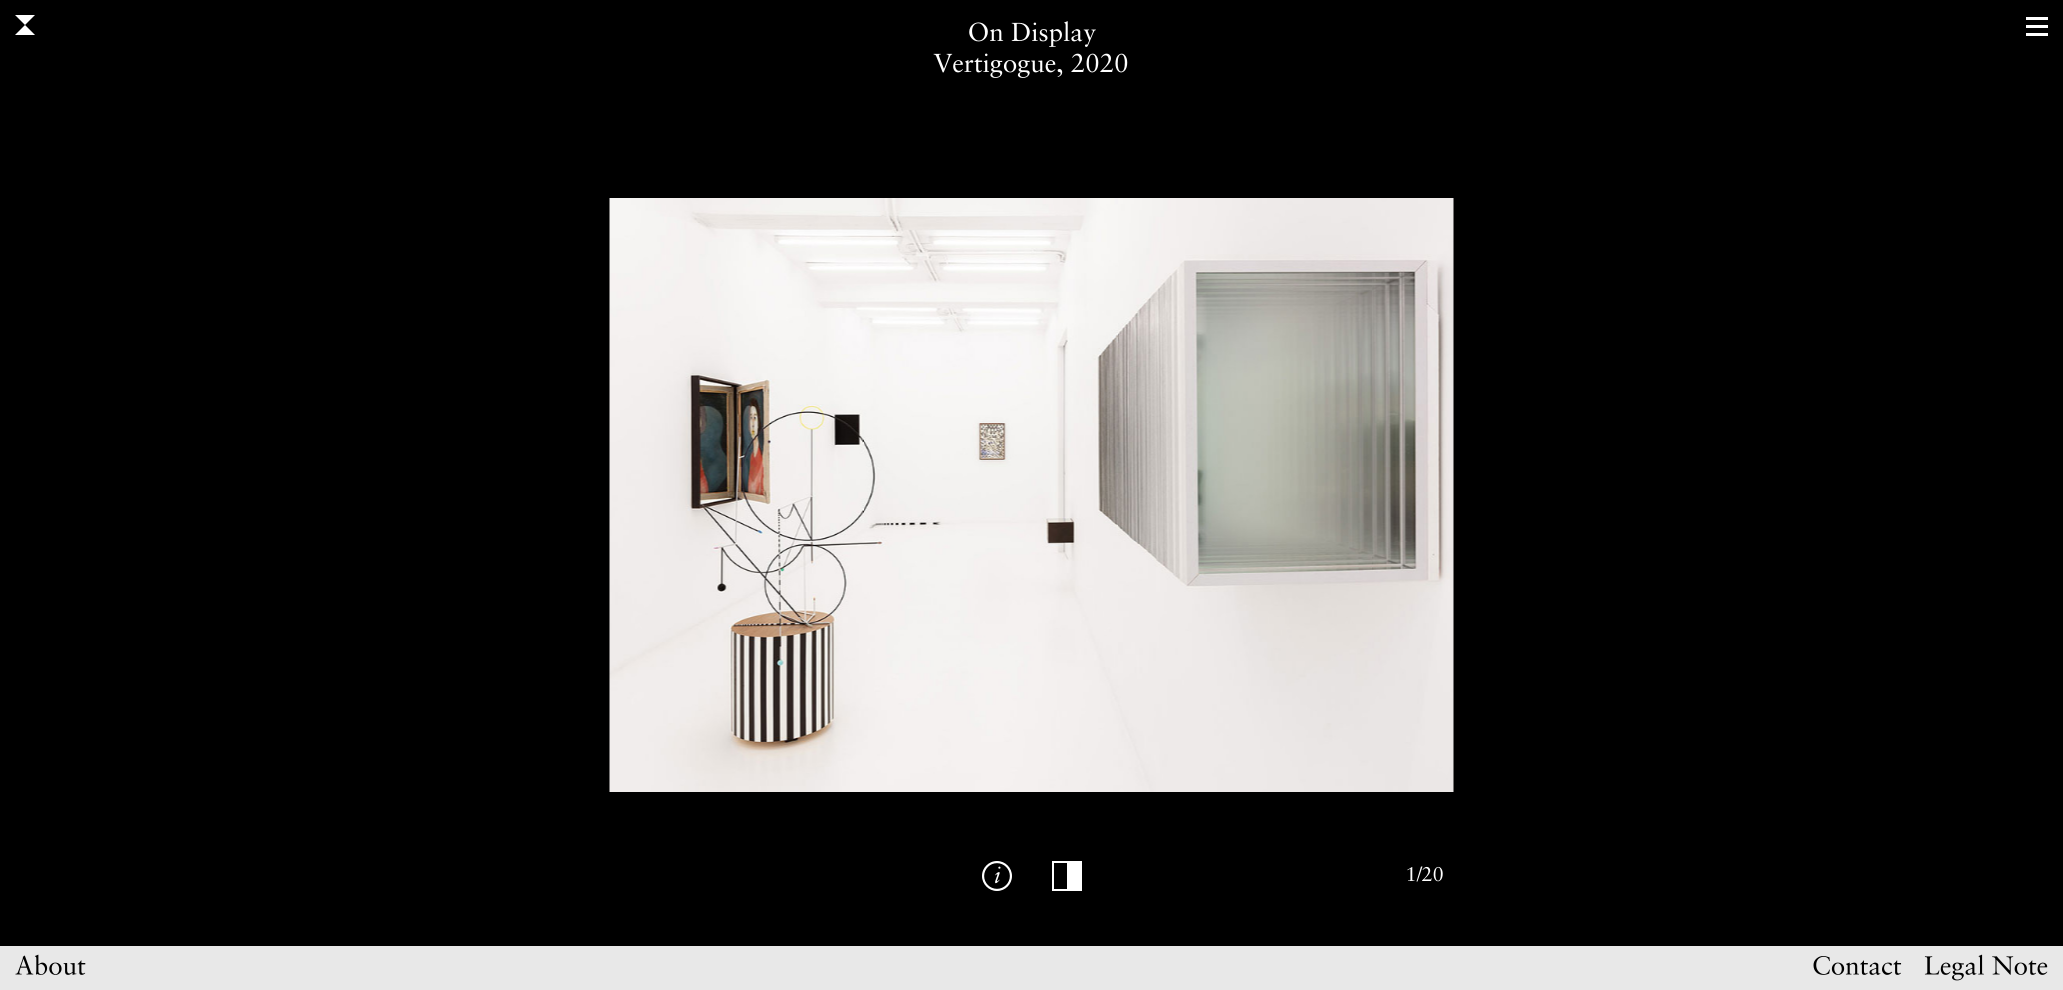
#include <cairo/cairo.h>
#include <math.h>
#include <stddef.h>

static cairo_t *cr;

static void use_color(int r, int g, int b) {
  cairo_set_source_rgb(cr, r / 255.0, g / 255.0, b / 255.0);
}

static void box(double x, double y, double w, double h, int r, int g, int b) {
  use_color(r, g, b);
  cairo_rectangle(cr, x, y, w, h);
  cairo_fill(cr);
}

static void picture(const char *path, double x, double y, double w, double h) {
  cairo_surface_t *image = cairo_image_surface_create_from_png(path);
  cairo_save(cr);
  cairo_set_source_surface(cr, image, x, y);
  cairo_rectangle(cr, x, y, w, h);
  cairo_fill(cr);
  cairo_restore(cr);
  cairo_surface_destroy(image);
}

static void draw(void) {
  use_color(0, 0, 0);
  cairo_paint(cr);
  picture("img_01.png", 15, 15, 20, 20);
  picture("img_02.png", 969, 21, 127, 26);
  box(2026, 25, 22, 3, 255, 255, 255);
  box(2026, 17, 22, 3, 255, 255, 255);
  box(2026, 33, 22, 3, 255, 255, 255);
  picture("img_03.png", 933, 53, 195, 25);
  picture("img_04.png", 609, 198, 845, 594);
  picture("img_05.png", 1407, 867, 8, 14);
  cairo_new_path(cr);
  cairo_move_to(cr, 1417.5, 881.5);
  cairo_line_to(cr, 1416.5, 881.5);
  cairo_line_to(cr, 1421, 866.5);
  cairo_line_to(cr, 1422.5, 866.5);
  cairo_close_path(cr);
  cairo_fill(cr);
  picture("img_06.png", 1422, 866, 21, 16);
  picture("img_07.png", 982, 861, 30, 30);
  cairo_new_path(cr);
  cairo_move_to(cr, 1052, 861);
  cairo_line_to(cr, 1082, 861);
  cairo_line_to(cr, 1082, 891);
  cairo_line_to(cr, 1052, 891);
  cairo_close_path(cr);
  cairo_move_to(cr, 1054, 863);
  cairo_line_to(cr, 1054, 889);
  cairo_line_to(cr, 1067, 889);
  cairo_line_to(cr, 1067, 863);
  cairo_close_path(cr);
  cairo_fill(cr);
  box(0, 946, 2063, 44, 232, 232, 232);
  picture("img_08.png", 15, 954, 71, 21);
  picture("img_09.png", 1813, 956, 89, 19);
  picture("img_10.png", 1924, 954, 124, 27);
}

int main(void) {
  cairo_surface_t *surface = cairo_image_surface_create(CAIRO_FORMAT_RGB24, 2063, 990);
  cr = cairo_create(surface);
  cairo_font_options_t *options = cairo_font_options_create();
  cairo_font_options_set_hint_metrics(options, CAIRO_HINT_METRICS_OFF);
  cairo_font_options_set_hint_style(options, CAIRO_HINT_STYLE_NONE);
  cairo_set_font_options(cr, options);
  cairo_set_miter_limit(cr, 4);
  draw();
  cairo_surface_write_to_png(surface, "out.png");
  cairo_font_options_destroy(options);
  cairo_destroy(cr);
  cairo_surface_destroy(surface);
  return 0;
}
